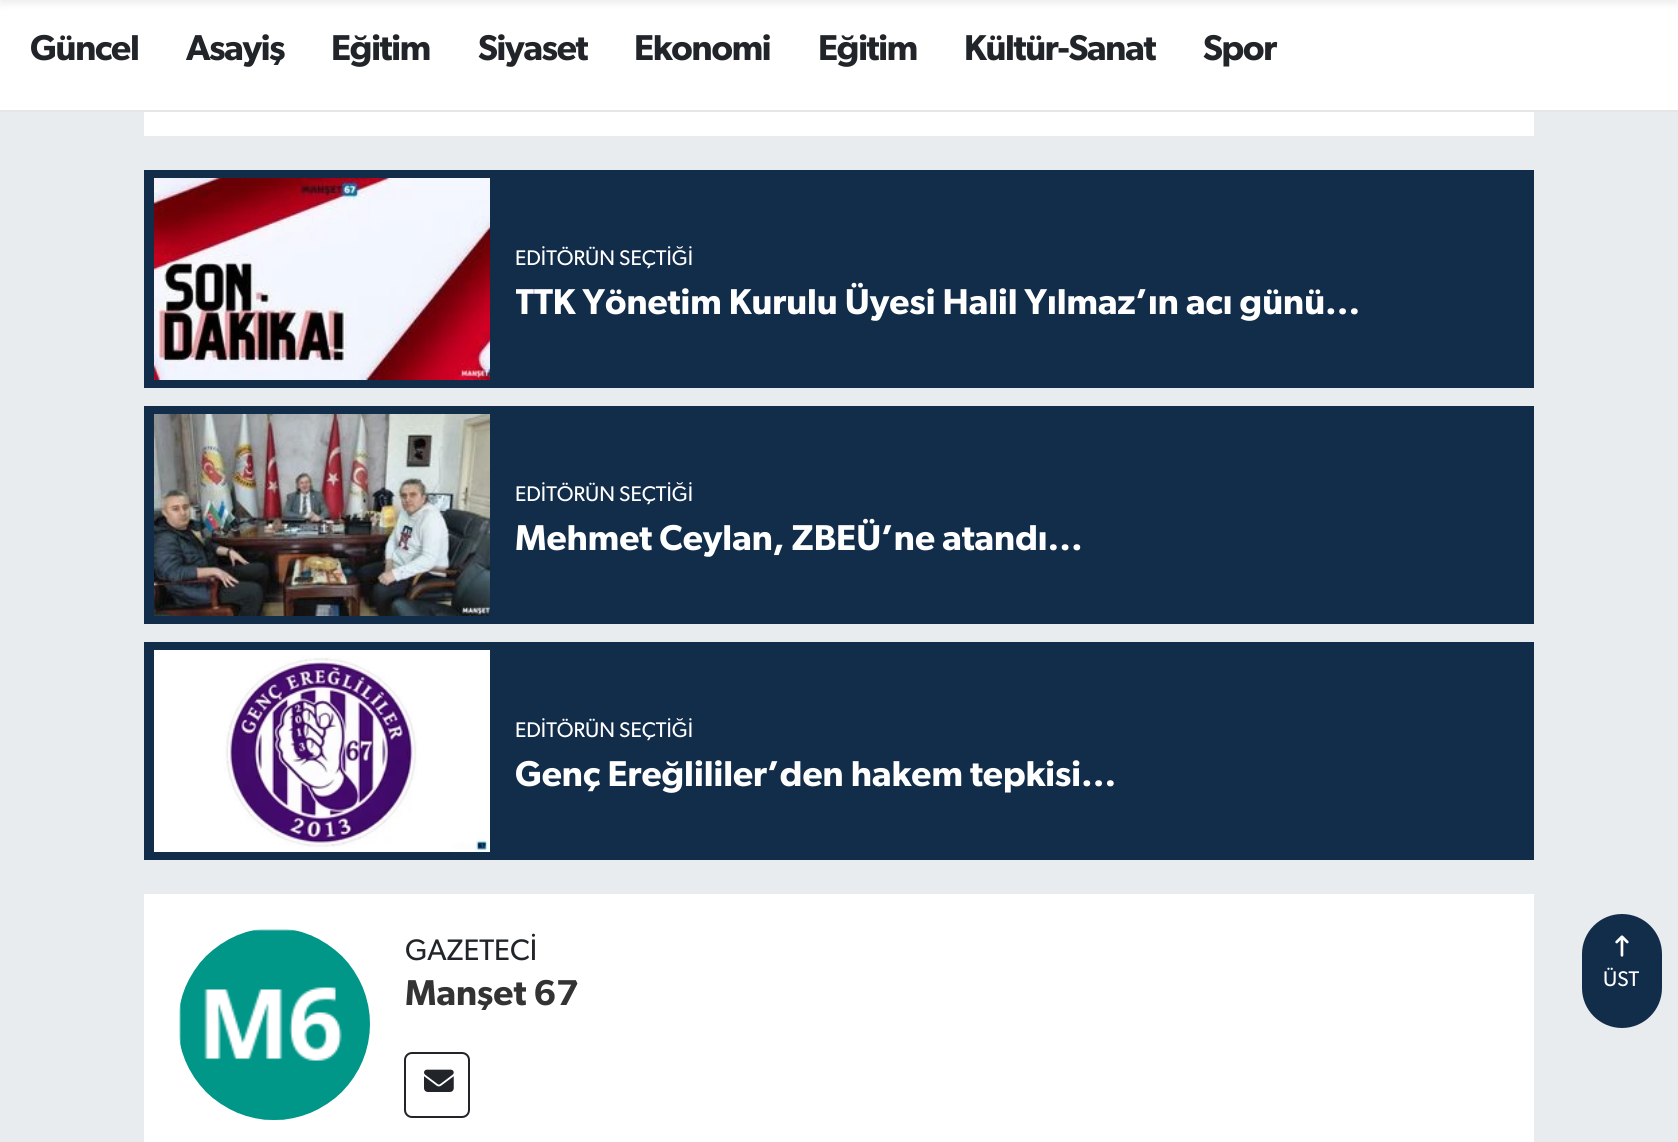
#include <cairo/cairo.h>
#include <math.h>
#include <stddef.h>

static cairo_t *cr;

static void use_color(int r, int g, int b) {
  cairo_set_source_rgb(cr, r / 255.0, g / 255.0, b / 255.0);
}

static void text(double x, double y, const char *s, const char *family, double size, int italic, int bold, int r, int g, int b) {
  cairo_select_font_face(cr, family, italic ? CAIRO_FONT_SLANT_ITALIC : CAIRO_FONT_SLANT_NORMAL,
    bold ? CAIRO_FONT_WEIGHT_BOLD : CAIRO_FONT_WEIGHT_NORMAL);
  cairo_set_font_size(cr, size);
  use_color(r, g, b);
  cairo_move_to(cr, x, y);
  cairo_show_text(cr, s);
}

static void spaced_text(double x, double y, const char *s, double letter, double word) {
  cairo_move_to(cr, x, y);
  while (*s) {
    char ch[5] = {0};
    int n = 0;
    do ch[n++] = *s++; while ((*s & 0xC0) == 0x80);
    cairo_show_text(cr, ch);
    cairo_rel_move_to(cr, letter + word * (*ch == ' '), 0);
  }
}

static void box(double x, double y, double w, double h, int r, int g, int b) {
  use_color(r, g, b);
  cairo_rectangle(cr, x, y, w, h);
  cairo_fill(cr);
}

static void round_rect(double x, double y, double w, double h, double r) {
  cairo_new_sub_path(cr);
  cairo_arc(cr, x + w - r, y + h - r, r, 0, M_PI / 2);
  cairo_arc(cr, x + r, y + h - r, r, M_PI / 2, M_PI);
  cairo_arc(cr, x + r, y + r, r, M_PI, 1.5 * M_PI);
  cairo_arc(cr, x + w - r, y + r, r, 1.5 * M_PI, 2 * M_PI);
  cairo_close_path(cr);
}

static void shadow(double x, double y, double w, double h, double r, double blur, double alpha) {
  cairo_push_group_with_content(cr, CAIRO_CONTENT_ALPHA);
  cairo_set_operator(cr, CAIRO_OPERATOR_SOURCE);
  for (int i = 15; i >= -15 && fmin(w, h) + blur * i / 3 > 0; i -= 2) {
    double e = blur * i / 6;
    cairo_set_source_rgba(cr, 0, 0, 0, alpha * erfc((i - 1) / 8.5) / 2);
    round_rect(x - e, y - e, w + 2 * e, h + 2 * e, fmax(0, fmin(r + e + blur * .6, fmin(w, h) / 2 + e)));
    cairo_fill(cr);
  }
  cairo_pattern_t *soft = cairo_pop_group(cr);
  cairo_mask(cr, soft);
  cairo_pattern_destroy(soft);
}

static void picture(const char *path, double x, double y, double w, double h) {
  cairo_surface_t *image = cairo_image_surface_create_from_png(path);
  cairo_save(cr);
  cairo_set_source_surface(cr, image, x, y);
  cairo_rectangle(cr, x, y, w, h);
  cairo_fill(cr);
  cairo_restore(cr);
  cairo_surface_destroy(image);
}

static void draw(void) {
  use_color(233, 236, 239);
  cairo_paint(cr);
  box(0, 0, 1678, 110, 255, 255, 255);
  use_color(0, 0, 0);
  shadow(0, -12, 1678, 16, 0, 4, 0.07);
  box(0, 110, 1678, 2, 230, 230, 230);
  box(144, 112, 1390, 24, 255, 255, 255);
  box(144, 170, 1390, 218, 18, 45, 74);
  picture("img_01.png", 154, 178, 336, 202);
  box(144, 406, 1390, 218, 18, 45, 74);
  picture("img_02.png", 154, 414, 336, 202);
  box(144, 642, 1390, 218, 18, 45, 74);
  picture("img_03.png", 154, 650, 336, 202);
  box(144, 894, 1390, 248, 255, 255, 255);
  picture("img_04.png", 179, 929, 191, 191);
  round_rect(405, 1053, 64, 64, 7);
  use_color(33, 37, 41);
  cairo_stroke(cr);
  picture("img_05.png", 424, 1069, 30, 23);
  use_color(18, 45, 74);
  round_rect(1582, 914, 80, 114, 40);
  cairo_fill(cr);
  picture("img_06.png", 1615, 935, 14, 22);
  cairo_select_font_face(cr, "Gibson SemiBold", CAIRO_FONT_SLANT_NORMAL, CAIRO_FONT_WEIGHT_NORMAL);
  cairo_set_font_size(cr, 36);
  use_color(33, 37, 41);
  spaced_text(30, 60, "Güncel", -1.25, 0);
  spaced_text(186, 60, "Asayiş", -1.25, 0);
  spaced_text(331, 60, "Eğitim", -1.25, 0);
  spaced_text(478, 60, "Siyaset", -1.25, 0);
  spaced_text(634, 60, "Ekonomi", -1.25, 0);
  spaced_text(818, 60, "Eğitim", -1.25, 0);
  spaced_text(964, 60, "Kültür-Sanat", -1.25, 0);
  spaced_text(1203, 60, "Spor", -1.25, 0);
  text(515, 265, "EDİTÖRÜN SEÇTİĞİ", "Gibson", 21.25, 0, 0, 255, 255, 255);
  cairo_save(cr);
  cairo_rectangle(cr, 516, 282, 992, 44);
  cairo_clip(cr);
  text(515, 314, "TTK Yönetim Kurulu Üyesi Halil Yılmaz’ın acı günü...", "Gibson SemiBold", 36, 0, 0, 255, 255, 255);
  cairo_restore(cr);
  text(515, 501, "EDİTÖRÜN SEÇTİĞİ", "Gibson", 21.25, 0, 0, 255, 255, 255);
  text(515, 550, "Mehmet Ceylan, ZBEÜ’ne atandı...", "Gibson SemiBold", 36, 0, 0, 255, 255, 255);
  text(515, 737, "EDİTÖRÜN SEÇTİĞİ", "Gibson", 21.25, 0, 0, 255, 255, 255);
  text(515, 786, "Genç Ereğlililer’den hakem tepkisi...", "Gibson SemiBold", 36, 0, 0, 255, 255, 255);
  text(405, 960, "GAZETECİ", "Gibson", 29.75, 0, 0, 33, 37, 41);
  text(405, 1005, "Manşet 67", "Gibson SemiBold", 36, 0, 0, 51, 51, 51);
  text(1603, 986, "ÜST", "Gibson", 21.25, 0, 0, 255, 255, 255);
}

int main(void) {
  cairo_surface_t *surface = cairo_image_surface_create(CAIRO_FORMAT_RGB24, 1678, 1142);
  cr = cairo_create(surface);
  cairo_font_options_t *options = cairo_font_options_create();
  cairo_font_options_set_hint_metrics(options, CAIRO_HINT_METRICS_OFF);
  cairo_font_options_set_hint_style(options, CAIRO_HINT_STYLE_NONE);
  cairo_set_font_options(cr, options);
  cairo_set_miter_limit(cr, 4);
  draw();
  cairo_surface_write_to_png(surface, "out.png");
  cairo_font_options_destroy(options);
  cairo_destroy(cr);
  cairo_surface_destroy(surface);
  return 0;
}
